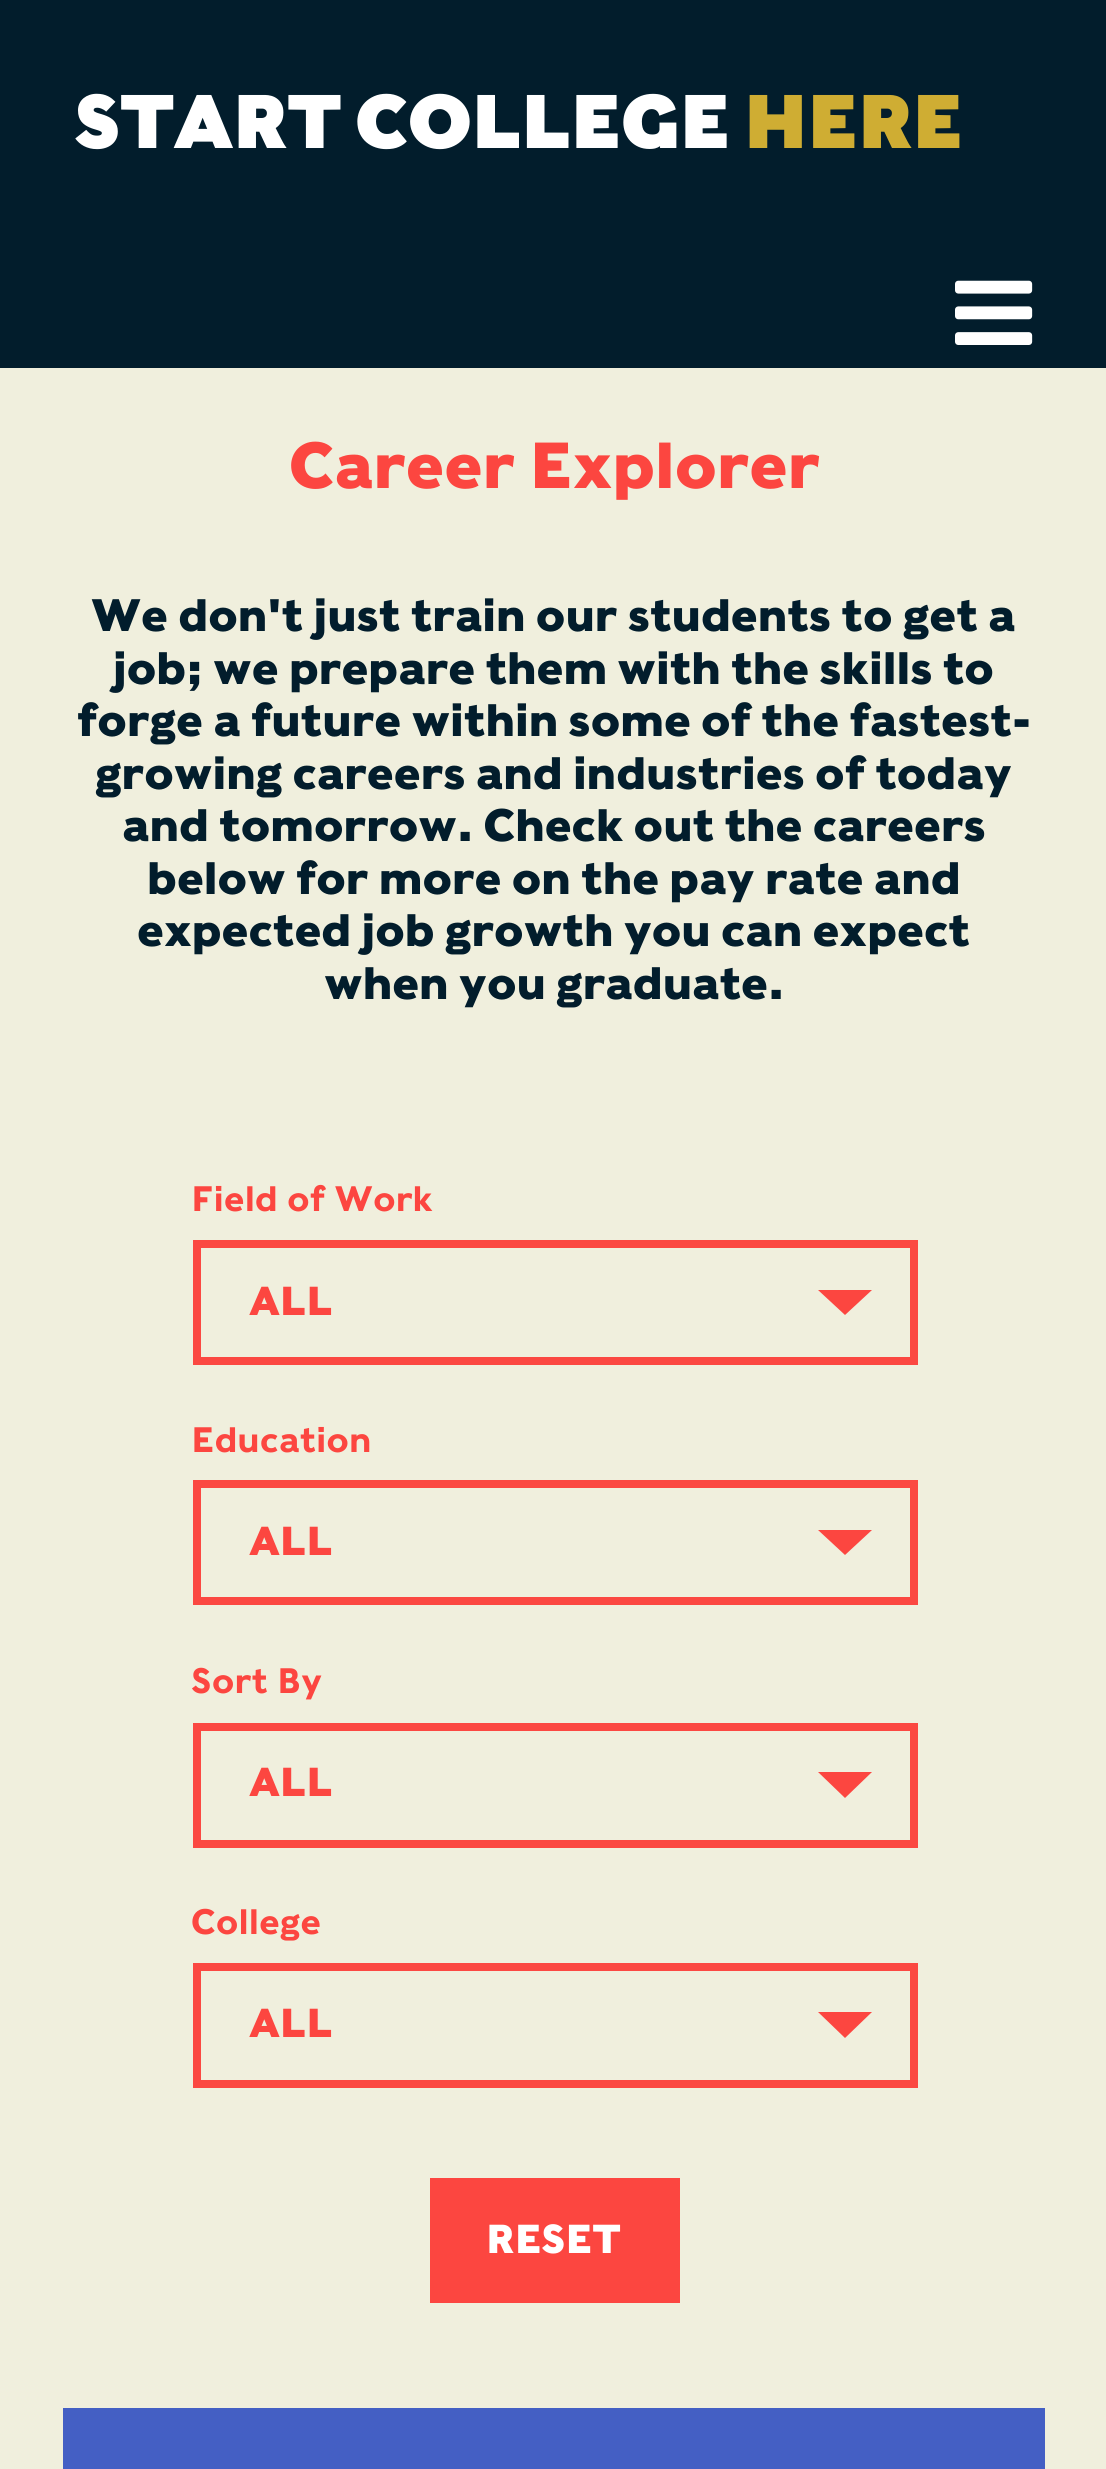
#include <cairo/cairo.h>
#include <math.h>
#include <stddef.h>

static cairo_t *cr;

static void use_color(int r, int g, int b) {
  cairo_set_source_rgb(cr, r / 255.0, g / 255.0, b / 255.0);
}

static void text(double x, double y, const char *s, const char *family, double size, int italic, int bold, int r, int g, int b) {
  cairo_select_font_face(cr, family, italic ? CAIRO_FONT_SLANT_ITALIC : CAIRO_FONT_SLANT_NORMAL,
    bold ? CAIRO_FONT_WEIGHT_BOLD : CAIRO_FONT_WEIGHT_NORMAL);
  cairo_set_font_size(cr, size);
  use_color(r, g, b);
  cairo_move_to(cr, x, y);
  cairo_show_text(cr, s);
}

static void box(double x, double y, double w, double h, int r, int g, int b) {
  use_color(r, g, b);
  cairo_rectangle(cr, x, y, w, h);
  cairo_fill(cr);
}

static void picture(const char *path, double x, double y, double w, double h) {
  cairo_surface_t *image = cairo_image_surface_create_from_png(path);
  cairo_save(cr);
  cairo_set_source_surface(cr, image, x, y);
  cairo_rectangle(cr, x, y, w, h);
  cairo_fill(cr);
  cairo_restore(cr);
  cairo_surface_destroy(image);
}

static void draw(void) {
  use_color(240, 239, 221);
  cairo_paint(cr);
  box(0, 0, 1106, 368, 2, 29, 44);
  picture("img_01.png", 955, 280, 78, 65);
  cairo_rectangle(cr, 197, 1244, 717, 117);
  use_color(251, 72, 65);
  cairo_set_line_width(cr, 8);
  cairo_stroke(cr);
  use_color(252, 70, 64);
  cairo_new_path(cr);
  cairo_move_to(cr, 818, 1290);
  cairo_line_to(cr, 872, 1290);
  cairo_line_to(cr, 845, 1315);
  cairo_close_path(cr);
  cairo_fill(cr);
  cairo_rectangle(cr, 197, 1484, 717, 117);
  use_color(251, 72, 65);
  cairo_stroke(cr);
  use_color(252, 70, 64);
  cairo_new_path(cr);
  cairo_move_to(cr, 818, 1530);
  cairo_line_to(cr, 872, 1530);
  cairo_line_to(cr, 845, 1555);
  cairo_close_path(cr);
  cairo_fill(cr);
  cairo_rectangle(cr, 197, 1727, 717, 117);
  use_color(251, 72, 65);
  cairo_stroke(cr);
  use_color(252, 70, 64);
  cairo_new_path(cr);
  cairo_move_to(cr, 818, 1772);
  cairo_line_to(cr, 872, 1772);
  cairo_line_to(cr, 845, 1798);
  cairo_close_path(cr);
  cairo_fill(cr);
  cairo_rectangle(cr, 197, 1967, 717, 117);
  use_color(251, 72, 65);
  cairo_stroke(cr);
  use_color(252, 70, 64);
  cairo_new_path(cr);
  cairo_move_to(cr, 818, 2012);
  cairo_line_to(cr, 872, 2012);
  cairo_line_to(cr, 845, 2038);
  cairo_close_path(cr);
  cairo_fill(cr);
  box(430, 2178, 250, 125, 252, 70, 64);
  box(63, 2408, 982, 61, 68, 95, 196);
  text(75, 148, "START COLLEGE", "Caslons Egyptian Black", 75, 0, 0, 255, 255, 255);
  text(744, 148, "HERE", "Caslons Egyptian Black", 75, 0, 0, 207, 173, 51);
  text(289, 488, "Career Explorer", "Caslons Egyptian", 64.25, 0, 1, 252, 70, 64);
  text(91, 631, "We don't just train our students to get a", "Caslons Egyptian", 45, 0, 1, 2, 29, 44);
  text(113, 684, "job; we prepare them with the skills to", "Caslons Egyptian", 45, 0, 1, 2, 29, 44);
  text(77, 736, "forge a future within some of the fastest-", "Caslons Egyptian", 45, 0, 1, 2, 29, 44);
  text(95, 789, "growing careers and industries of today", "Caslons Egyptian", 45, 0, 1, 2, 29, 44);
  text(122, 841, "and tomorrow. Check out the careers", "Caslons Egyptian", 45, 0, 1, 2, 29, 44);
  text(147, 894, "below for more on the pay rate and", "Caslons Egyptian", 45, 0, 1, 2, 29, 44);
  text(137, 946, "expected job growth you can expect", "Caslons Egyptian", 45, 0, 1, 2, 29, 44);
  text(324, 999, "when you graduate.", "Caslons Egyptian", 45, 0, 1, 2, 29, 44);
  text(191, 1211, "Field of Work", "Caslons Egyptian Medium", 35, 0, 0, 252, 70, 64);
  text(249, 1315, "ALL", "Caslons Egyptian", 40, 0, 1, 252, 70, 64);
  text(191, 1452, "Education", "Caslons Egyptian Medium", 35, 0, 0, 252, 70, 64);
  text(249, 1555, "ALL", "Caslons Egyptian", 40, 0, 1, 252, 70, 64);
  text(191, 1693, "Sort By", "Caslons Egyptian Medium", 35, 0, 0, 252, 70, 64);
  text(249, 1796, "ALL", "Caslons Egyptian", 40, 0, 1, 252, 70, 64);
  text(191, 1934, "College", "Caslons Egyptian Medium", 35, 0, 0, 252, 70, 64);
  text(249, 2037, "ALL", "Caslons Egyptian", 40, 0, 1, 252, 70, 64);
  text(486, 2253, "RESET", "Caslons Egyptian", 40, 0, 1, 255, 255, 255);
}

int main(void) {
  cairo_surface_t *surface = cairo_image_surface_create(CAIRO_FORMAT_RGB24, 1106, 2469);
  cr = cairo_create(surface);
  cairo_font_options_t *options = cairo_font_options_create();
  cairo_font_options_set_hint_metrics(options, CAIRO_HINT_METRICS_OFF);
  cairo_font_options_set_hint_style(options, CAIRO_HINT_STYLE_NONE);
  cairo_set_font_options(cr, options);
  cairo_set_miter_limit(cr, 4);
  draw();
  cairo_surface_write_to_png(surface, "out.png");
  cairo_font_options_destroy(options);
  cairo_destroy(cr);
  cairo_surface_destroy(surface);
  return 0;
}
